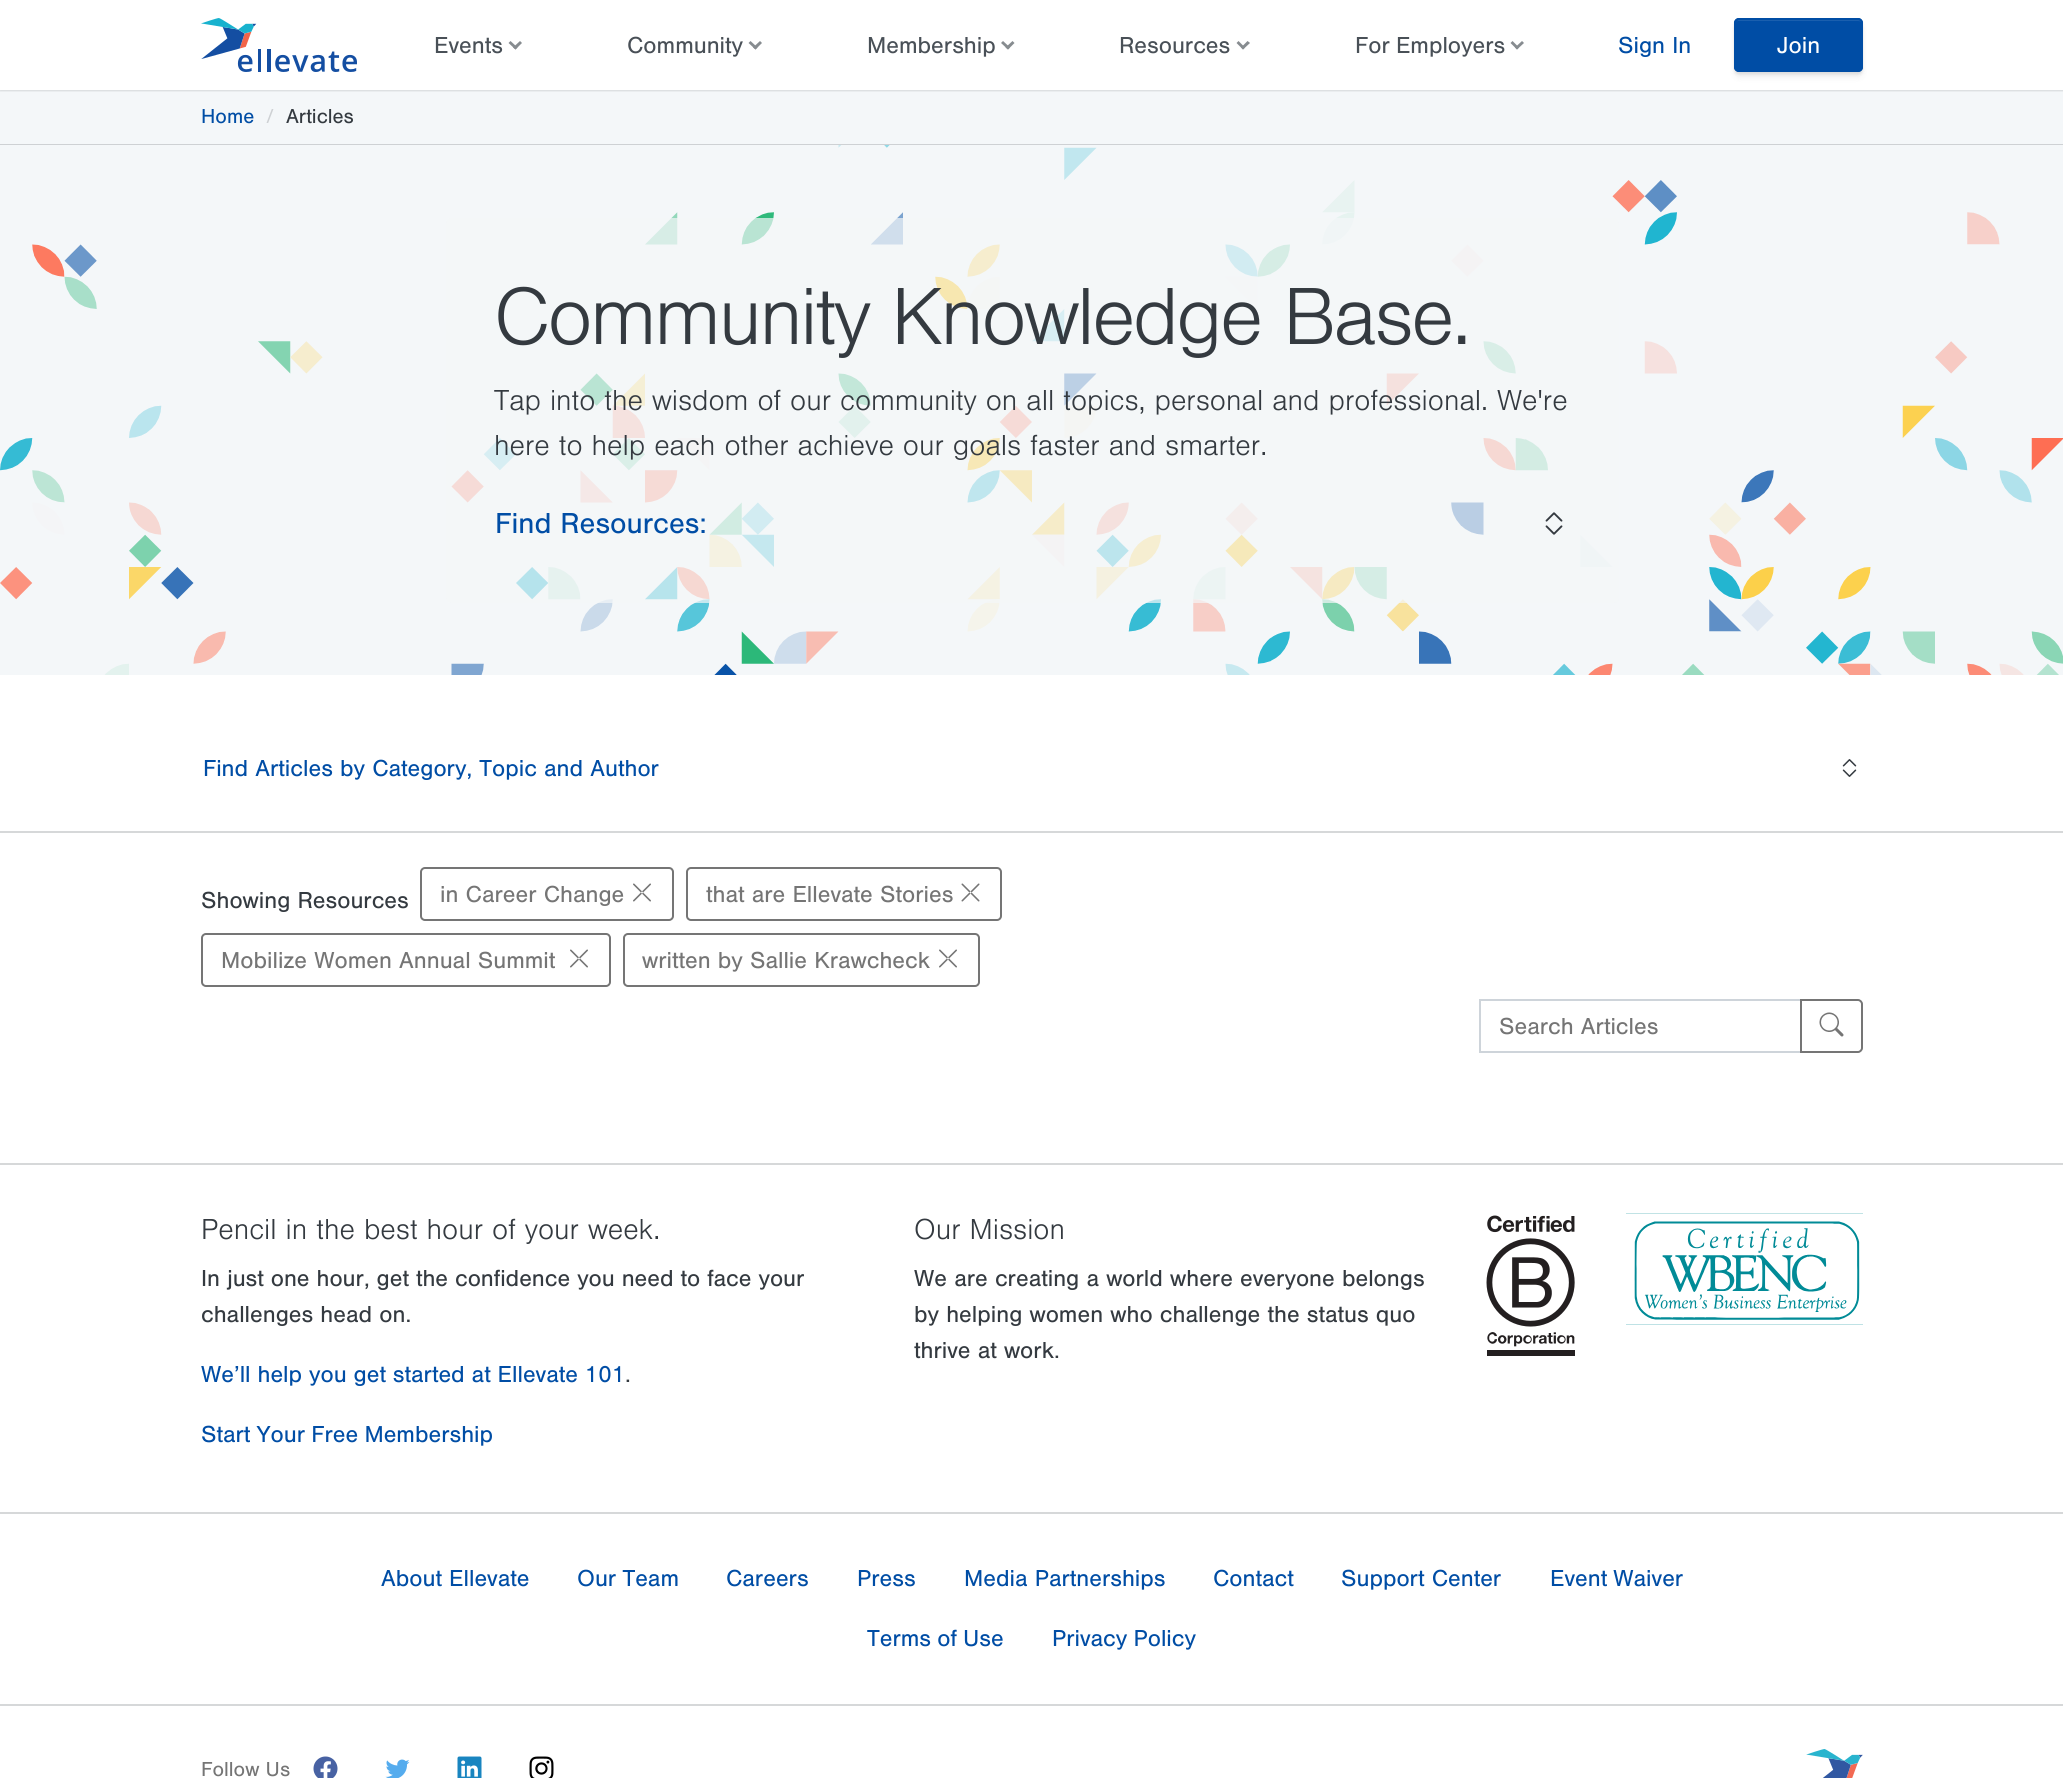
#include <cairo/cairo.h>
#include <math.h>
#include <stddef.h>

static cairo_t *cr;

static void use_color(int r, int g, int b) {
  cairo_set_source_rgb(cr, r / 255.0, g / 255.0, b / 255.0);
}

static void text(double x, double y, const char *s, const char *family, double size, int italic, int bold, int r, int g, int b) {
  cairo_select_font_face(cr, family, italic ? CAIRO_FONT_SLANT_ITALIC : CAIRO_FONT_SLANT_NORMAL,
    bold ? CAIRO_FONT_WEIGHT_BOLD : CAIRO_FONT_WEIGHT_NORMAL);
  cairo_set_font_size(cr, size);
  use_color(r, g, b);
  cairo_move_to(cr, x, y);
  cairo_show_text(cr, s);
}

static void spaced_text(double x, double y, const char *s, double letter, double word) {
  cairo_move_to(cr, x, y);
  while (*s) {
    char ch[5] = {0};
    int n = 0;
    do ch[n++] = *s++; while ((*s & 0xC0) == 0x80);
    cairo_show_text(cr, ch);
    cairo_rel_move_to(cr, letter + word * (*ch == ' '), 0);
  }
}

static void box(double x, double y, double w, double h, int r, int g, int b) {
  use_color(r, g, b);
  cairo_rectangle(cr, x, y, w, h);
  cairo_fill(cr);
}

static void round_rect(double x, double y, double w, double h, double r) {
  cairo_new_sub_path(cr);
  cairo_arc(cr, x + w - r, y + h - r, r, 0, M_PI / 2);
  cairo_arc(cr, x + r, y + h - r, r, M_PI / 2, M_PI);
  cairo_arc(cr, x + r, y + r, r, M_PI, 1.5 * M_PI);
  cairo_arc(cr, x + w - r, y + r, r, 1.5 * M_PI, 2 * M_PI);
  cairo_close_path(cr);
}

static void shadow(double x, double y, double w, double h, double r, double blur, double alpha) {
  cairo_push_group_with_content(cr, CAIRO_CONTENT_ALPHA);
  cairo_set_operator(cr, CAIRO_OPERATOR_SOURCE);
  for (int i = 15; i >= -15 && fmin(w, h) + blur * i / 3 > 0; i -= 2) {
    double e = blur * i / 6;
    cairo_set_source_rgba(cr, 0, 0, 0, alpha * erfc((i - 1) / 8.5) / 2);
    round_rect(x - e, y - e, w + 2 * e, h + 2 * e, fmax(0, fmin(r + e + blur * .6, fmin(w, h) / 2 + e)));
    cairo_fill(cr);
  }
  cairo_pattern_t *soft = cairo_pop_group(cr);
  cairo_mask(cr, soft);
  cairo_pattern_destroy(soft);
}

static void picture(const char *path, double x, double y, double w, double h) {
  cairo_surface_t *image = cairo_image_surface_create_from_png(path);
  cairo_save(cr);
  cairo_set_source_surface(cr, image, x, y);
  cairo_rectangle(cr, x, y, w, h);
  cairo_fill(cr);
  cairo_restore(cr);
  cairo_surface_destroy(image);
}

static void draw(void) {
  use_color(255, 255, 255);
  cairo_paint(cr);
  box(0, 90, 2063, 54, 244, 247, 249);
  cairo_save(cr);
  cairo_rectangle(cr, 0, 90, 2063, 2);
  cairo_clip(cr);
  use_color(0, 0, 0);
  shadow(0, 0, 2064, 90, 0, 1.5, 0.25);
  cairo_restore(cr);
  picture("img_01.png", 201, 18, 156, 54);
  use_color(135, 140, 144);
  cairo_new_path(cr);
  cairo_move_to(cr, 522, 43);
  cairo_line_to(cr, 515.5, 49.5);
  cairo_line_to(cr, 513, 47.5);
  cairo_line_to(cr, 520, 41);
  cairo_close_path(cr);
  cairo_fill(cr);
  cairo_new_path(cr);
  cairo_move_to(cr, 517.5, 47.5);
  cairo_line_to(cr, 515.5, 49.5);
  cairo_line_to(cr, 508.5, 43);
  cairo_line_to(cr, 510.5, 41);
  cairo_close_path(cr);
  cairo_fill(cr);
  cairo_new_path(cr);
  cairo_move_to(cr, 762, 43);
  cairo_line_to(cr, 755.5, 49.5);
  cairo_line_to(cr, 753, 47.5);
  cairo_line_to(cr, 760, 41);
  cairo_close_path(cr);
  cairo_fill(cr);
  cairo_new_path(cr);
  cairo_move_to(cr, 757.5, 47.5);
  cairo_line_to(cr, 755.5, 49.5);
  cairo_line_to(cr, 748.5, 43);
  cairo_line_to(cr, 750.5, 41);
  cairo_close_path(cr);
  cairo_fill(cr);
  cairo_new_path(cr);
  cairo_move_to(cr, 1014.5, 43);
  cairo_line_to(cr, 1008, 49.5);
  cairo_line_to(cr, 1005.5, 47.5);
  cairo_line_to(cr, 1012.5, 41);
  cairo_close_path(cr);
  cairo_fill(cr);
  cairo_new_path(cr);
  cairo_move_to(cr, 1010, 47.5);
  cairo_line_to(cr, 1008, 49.5);
  cairo_line_to(cr, 1001, 43);
  cairo_line_to(cr, 1003, 41);
  cairo_close_path(cr);
  cairo_fill(cr);
  cairo_new_path(cr);
  cairo_move_to(cr, 1250, 43);
  cairo_line_to(cr, 1243, 49.5);
  cairo_line_to(cr, 1241, 47.5);
  cairo_line_to(cr, 1247.5, 41);
  cairo_close_path(cr);
  cairo_fill(cr);
  cairo_new_path(cr);
  cairo_move_to(cr, 1245, 47.5);
  cairo_line_to(cr, 1243, 49.5);
  cairo_line_to(cr, 1236.5, 43);
  cairo_line_to(cr, 1238.5, 41);
  cairo_close_path(cr);
  cairo_fill(cr);
  cairo_new_path(cr);
  cairo_move_to(cr, 1524, 43);
  cairo_line_to(cr, 1517, 49.5);
  cairo_line_to(cr, 1515, 47.5);
  cairo_line_to(cr, 1522, 41);
  cairo_close_path(cr);
  cairo_fill(cr);
  cairo_new_path(cr);
  cairo_move_to(cr, 1519, 47.5);
  cairo_line_to(cr, 1517, 49.5);
  cairo_line_to(cr, 1510.5, 43);
  cairo_line_to(cr, 1512.5, 41);
  cairo_close_path(cr);
  cairo_fill(cr);
  use_color(0, 0, 0);
  shadow(1734, 24, 129, 54, 5, 3, 0.05);
  shadow(1734, 21, 129, 54, 5, 1.5, 0.05);
  shadow(1734, 20, 129, 54, 5, 1, 0.05);
  use_color(0, 77, 165);
  round_rect(1734, 18, 129, 54, 5);
  cairo_fill(cr);
  use_color(26, 95, 174);
  cairo_new_path(cr);
  cairo_move_to(cr, 1738, 21);
  cairo_line_to(cr, 1858, 21);
  cairo_curve_to(cr, 1860, 21, 1862, 22, 1862, 24);
  cairo_curve_to(cr, 1862, 22, 1862, 20, 1860, 20);
  cairo_line_to(cr, 1739, 20);
  cairo_curve_to(cr, 1737, 20, 1736, 22, 1736, 24);
  cairo_curve_to(cr, 1736, 22, 1737, 21, 1738, 21);
  cairo_close_path(cr);
  cairo_fill(cr);
  round_rect(1735, 19, 127, 52, 4);
  use_color(0, 77, 165);
  cairo_stroke(cr);
  box(0, 144, 2063, 1, 206, 209, 212);
  picture("img_02.png", 0, 145, 2063, 530);
  cairo_set_source_rgba(cr, 0.957, 0.969, 0.976, 0.7);
  round_rect(446, 218, 1173, 385, 5);
  cairo_fill(cr);
  picture("img_03.png", 1545, 512, 18, 23);
  picture("img_04.png", 1842, 759, 15, 18);
  box(0, 831, 2063, 2, 214, 216, 217);
  round_rect(421, 868, 252, 52, 4);
  use_color(117, 117, 117);
  cairo_stroke(cr);
  picture("img_05.png", 633, 883, 18, 19);
  round_rect(687, 868, 314, 52, 4);
  cairo_stroke(cr);
  picture("img_06.png", 961, 883, 19, 19);
  round_rect(202, 934, 408, 52, 4);
  cairo_stroke(cr);
  picture("img_05.png", 570, 949, 18, 19);
  round_rect(624, 934, 355, 52, 4);
  cairo_stroke(cr);
  picture("img_05.png", 939, 949, 18, 19);
  cairo_rectangle(cr, 1480, 1000, 321, 52);
  use_color(206, 212, 218);
  cairo_stroke(cr);
  cairo_new_path(cr);
  cairo_move_to(cr, 1801, 1000);
  cairo_line_to(cr, 1858, 1000);
  cairo_curve_to(cr, 1860, 1000, 1862, 1002, 1862, 1004);
  cairo_line_to(cr, 1862, 1048);
  cairo_curve_to(cr, 1862, 1050, 1860, 1052, 1858, 1052);
  cairo_line_to(cr, 1801, 1052);
  cairo_close_path(cr);
  use_color(117, 117, 117);
  cairo_stroke(cr);
  picture("img_07.png", 1819, 1012, 25, 25);
  box(0, 1163, 2063, 2, 214, 216, 217);
  picture("img_08.png", 1486, 1215, 89, 141);
  picture("img_09.png", 1626, 1213, 237, 112);
  box(0, 1512, 2063, 2, 214, 216, 217);
  box(0, 1704, 2063, 2, 214, 216, 217);
  picture("img_10.png", 313, 1756, 25, 22);
  picture("img_11.png", 385, 1759, 25, 19);
  picture("img_12.png", 457, 1756, 25, 22);
  picture("img_13.png", 529, 1756, 25, 22);
  picture("img_14.png", 1806, 1749, 57, 29);
  text(434, 53, "Events", "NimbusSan", 24, 0, 0, 73, 80, 87);
  text(627, 53, "Community", "NimbusSan", 24, 0, 0, 73, 80, 87);
  text(867, 53, "Membership", "NimbusSan", 24, 0, 0, 73, 80, 87);
  text(1119, 53, "Resources", "NimbusSan", 24, 0, 0, 73, 80, 87);
  spaced_text(1355, 53, "For Employers", 0, -1);
  text(1618, 53, "Sign In", "NimbusSan", 24, 0, 0, 0, 77, 165);
  text(1777, 53, "Join", "NimbusSan", 24, 0, 0, 255, 255, 255);
  text(201, 123, "Home", "NimbusSan", 21, 0, 0, 0, 77, 165);
  text(266, 123, "/", "NimbusSan", 21, 0, 0, 206, 209, 212);
  text(286, 123, "Articles", "NimbusSan", 21, 0, 0, 52, 58, 64);
  cairo_select_font_face(cr, "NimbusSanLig", CAIRO_FONT_SLANT_NORMAL, CAIRO_FONT_WEIGHT_NORMAL);
  cairo_set_font_size(cr, 84);
  spaced_text(494, 344, "Community Knowledge Base.", -2.5, 0);
  text(494, 410, "Tap into the wisdom of our community on all topics, personal and professional. We're", "NimbusSanLig", 30, 0, 0, 52, 58, 64);
  text(494, 455, "here to help each other achieve our goals faster and smarter.", "NimbusSanLig", 30, 0, 0, 52, 58, 64);
  text(495, 533, "Find Resources:", "NimbusSan", 30, 0, 0, 0, 77, 165);
  text(203, 776, "Find Articles by Category, Topic and Author", "NimbusSan", 24, 0, 0, 0, 77, 165);
  text(201, 908, "Showing Resources", "NimbusSan", 24, 0, 0, 52, 58, 64);
  text(440, 902, "in Career Change", "NimbusSan", 24, 0, 0, 117, 117, 117);
  text(706, 902, "that are Ellevate Stories", "NimbusSan", 24, 0, 0, 117, 117, 117);
  text(221, 968, "Mobilize Women Annual Summit", "NimbusSan", 24, 0, 0, 117, 117, 117);
  text(642, 968, "written by Sallie Krawcheck", "NimbusSan", 24, 0, 0, 117, 117, 117);
  text(1499, 1034, "Search Articles", "NimbusSan", 24, 0, 0, 117, 117, 117);
  text(201, 1239, "Pencil in the best hour of your week.", "NimbusSanLig", 30, 0, 0, 52, 58, 64);
  cairo_select_font_face(cr, "NimbusSan", CAIRO_FONT_SLANT_NORMAL, CAIRO_FONT_WEIGHT_NORMAL);
  cairo_set_font_size(cr, 24);
  spaced_text(201, 1286, "In just one hour, get the confidence you need to face your", 0, -0.25);
  text(201, 1322, "challenges head on.", "NimbusSan", 24, 0, 0, 52, 58, 64);
  use_color(0, 77, 165);
  spaced_text(201, 1382, "We’ll help you get started at Ellevate 101", 0, -0.25);
  text(625, 1382, ".", "NimbusSan", 24, 0, 0, 52, 58, 64);
  use_color(0, 77, 165);
  spaced_text(201, 1442, "Start Your Free Membership", 0, -1);
  text(914, 1239, "Our Mission", "NimbusSanLig", 30, 0, 0, 52, 58, 64);
  text(914, 1286, "We are creating a world where everyone belongs", "NimbusSan", 24, 0, 0, 52, 58, 64);
  text(914, 1322, "by helping women who challenge the status quo", "NimbusSan", 24, 0, 0, 52, 58, 64);
  text(914, 1358, "thrive at work.", "NimbusSan", 24, 0, 0, 52, 58, 64);
  text(381, 1586, "About Ellevate", "NimbusSan", 24, 0, 0, 0, 77, 165);
  spaced_text(577, 1586, "Our Team", 0, -1);
  text(726, 1586, "Careers", "NimbusSan", 24, 0, 0, 0, 77, 165);
  text(857, 1586, "Press", "NimbusSan", 24, 0, 0, 0, 77, 165);
  text(964, 1586, "Media Partnerships", "NimbusSan", 24, 0, 0, 0, 77, 165);
  text(1213, 1586, "Contact", "NimbusSan", 24, 0, 0, 0, 77, 165);
  text(1341, 1586, "Support Center", "NimbusSan", 24, 0, 0, 0, 77, 165);
  spaced_text(1550, 1586, "Event Waiver", 0, -1);
  spaced_text(867, 1646, "Terms of Use", 0, -1);
  spaced_text(1052, 1646, "Privacy Policy", 0, -1);
  text(201, 1776, "Follow Us", "NimbusSan", 21, 0, 0, 117, 117, 117);
}

int main(void) {
  cairo_surface_t *surface = cairo_image_surface_create(CAIRO_FORMAT_RGB24, 2063, 1778);
  cr = cairo_create(surface);
  cairo_font_options_t *options = cairo_font_options_create();
  cairo_font_options_set_hint_metrics(options, CAIRO_HINT_METRICS_OFF);
  cairo_font_options_set_hint_style(options, CAIRO_HINT_STYLE_NONE);
  cairo_set_font_options(cr, options);
  cairo_set_miter_limit(cr, 4);
  draw();
  cairo_surface_write_to_png(surface, "out.png");
  cairo_font_options_destroy(options);
  cairo_destroy(cr);
  cairo_surface_destroy(surface);
  return 0;
}
